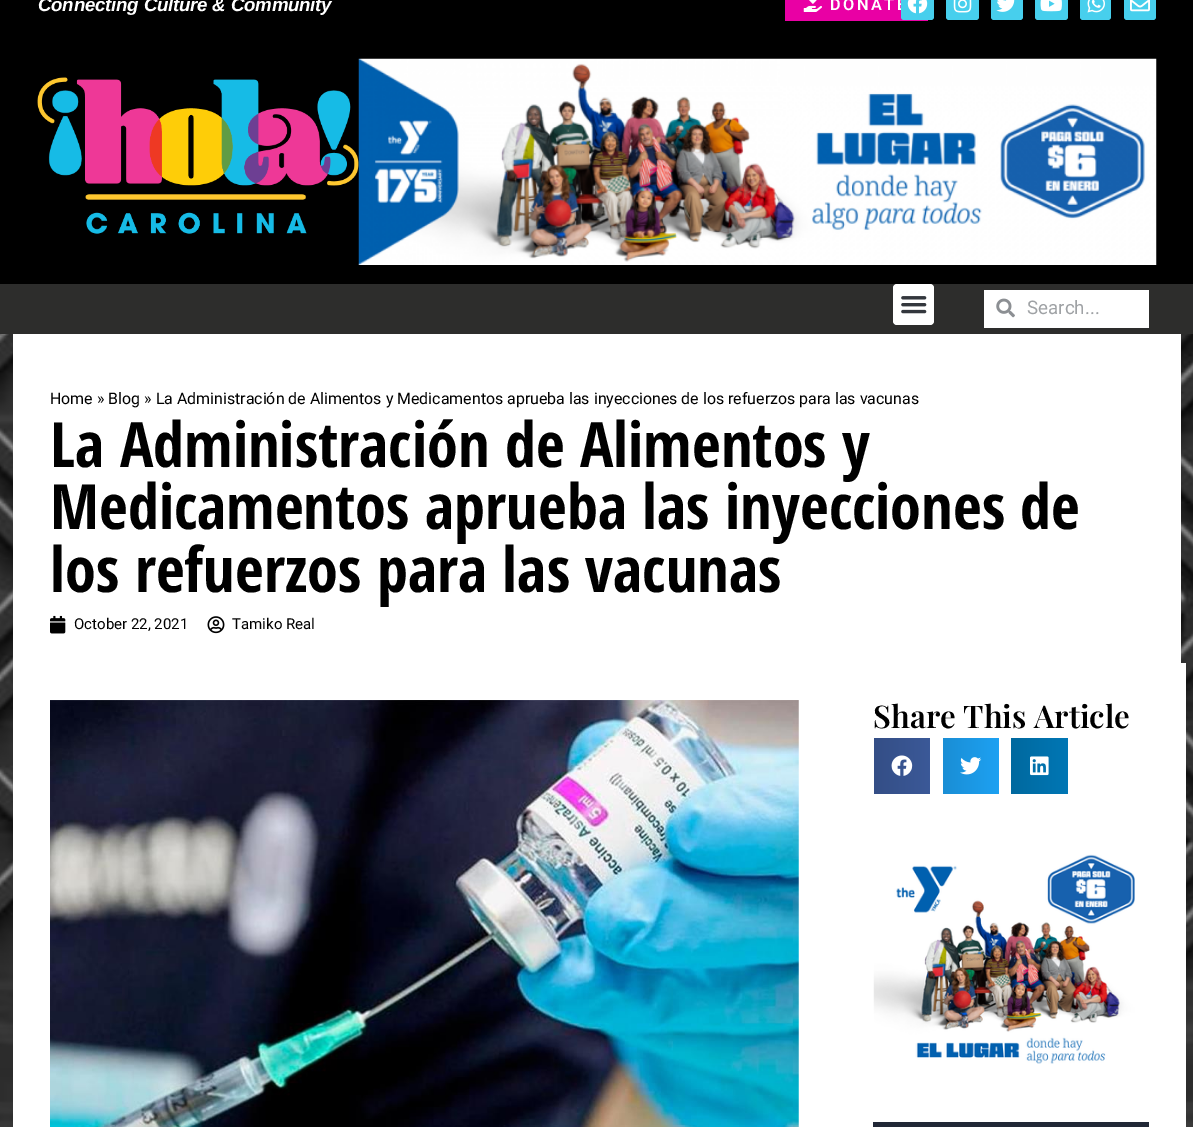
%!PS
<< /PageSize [1193 1127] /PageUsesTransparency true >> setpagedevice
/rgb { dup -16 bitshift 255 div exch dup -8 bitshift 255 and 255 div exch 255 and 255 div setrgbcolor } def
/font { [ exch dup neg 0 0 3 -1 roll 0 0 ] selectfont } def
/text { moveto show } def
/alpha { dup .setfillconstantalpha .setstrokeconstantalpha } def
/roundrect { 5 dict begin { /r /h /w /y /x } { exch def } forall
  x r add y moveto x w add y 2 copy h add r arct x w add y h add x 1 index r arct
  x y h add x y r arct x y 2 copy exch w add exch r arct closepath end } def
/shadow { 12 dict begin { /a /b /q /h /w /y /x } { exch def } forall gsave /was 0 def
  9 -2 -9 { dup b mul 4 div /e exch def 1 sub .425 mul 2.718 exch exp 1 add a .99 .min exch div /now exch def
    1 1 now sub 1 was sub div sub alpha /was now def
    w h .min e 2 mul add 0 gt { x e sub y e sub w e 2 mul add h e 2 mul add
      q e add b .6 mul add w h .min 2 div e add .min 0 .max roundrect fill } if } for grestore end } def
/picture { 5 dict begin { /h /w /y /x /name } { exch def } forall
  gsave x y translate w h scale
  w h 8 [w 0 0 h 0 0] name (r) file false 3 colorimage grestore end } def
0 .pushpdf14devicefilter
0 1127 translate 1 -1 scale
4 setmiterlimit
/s1 { /Roboto-Regular 18.75 font 16#9FA2A5 rgb } def
/s2 { /Roboto-Regular 15.95 font 16#000000 rgb } def
/s3 { /OpenSansCondensed-Bold 62.5 font 16#000000 rgb } def
/s4 { /Roboto-Regular 15 font 16#000000 rgb } def
/s5 { /PlayfairDisplay-SemiBold 31.25 font 16#000000 rgb } def
16#FFFFFF rgb
0 0 1193 1127 rectfill
(pic1.raw) 0 334 1193 793 picture
16#000000 rgb
0 -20 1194 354 0 12.5 0.2 shadow
0 0 1193 284 rectfill
/LiberationSans-BoldItalic 18.75 font
16#FFFFFF rgb
38 11 moveto -0.25 0 (Connecting Culture & Community) ashow
16#E900A4 rgb
785 0 143 21 rectfill
(pic2.raw) 803 0 19 12 picture
/Roboto-SemiBold 16.25 font
16#FFFFFF rgb
830 10 moveto 2.5 0 (DONATE) ashow
16#47CFED rgb
901 -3 33 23 3 roundrect fill
(pic3.raw) 907 0 21 14 picture
946 -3 33 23 3 roundrect fill
(pic4.raw) 953 0 19 13 picture
991 -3 32 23 3 roundrect fill
(pic5.raw) 996 0 19 12 picture
1035 -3 33 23 3 roundrect fill
(pic6.raw) 1040 0 22 12 picture
1080 -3 31 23 3 roundrect fill
(pic7.raw) 1087 0 18 13 picture
1124 -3 32 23 3 roundrect fill
(pic8.raw) 1130 0 20 12 picture
(pic9.raw) 37 77 322 157 picture
(pic10.raw) 358 58 799 207 picture
16#2D2D2C rgb
0 284 1193 50 rectfill
16#FFFFFF rgb
893 284 41 41 4 roundrect fill
(pic11.raw) 901 296 26 18 picture
984 290 165 38 rectfill
(pic12.raw) 996 298 19 20 picture
s1
(Search...) 1027 314 text
16#FFFFFF rgb
13 334 1168 329 rectfill
s2
(Home » Blog » La Administración de Alimentos y Medicamentos aprueba las inyecciones de los refuerzos para las vacunas) 50 404 text
s3
(La Administración de Alimentos y) 50 467 text
(Medicamentos aprueba las inyecciones de) 50 529 text
(los refuerzos para las vacunas) 50 592 text
(pic13.raw) 50 615 16 19 picture
s4
(October 22, 2021) 74 629 text
(pic14.raw) 207 616 18 18 picture
(Tamiko Real) 232 629 text
16#FFFFFF rgb
13 663 1173 464 rectfill
(pic15.raw) 50 700 749 427 picture
s5
(Share This Article) 873 728 text
gsave 874 738 moveto 930 738 lineto 930 794 lineto 874 794 lineto closepath clip newpath
<< /ShadingType 2 /ColorSpace /DeviceRGB /Coords [874 766 930 766] /Extend [true true] /Function << /FunctionType 2 /Domain [0 1] /C0 [0.204 0.306 0.525] /C1 [0.231 0.349 0.596] /N 1 >> >> shfill grestore
(pic16.raw) 891 755 22 21 picture
gsave 943 738 moveto 999 738 lineto 999 794 lineto 943 794 lineto closepath clip newpath
<< /ShadingType 2 /ColorSpace /DeviceRGB /Coords [943 766 999 766] /Extend [true true] /Function << /FunctionType 2 /Domain [0 1] /C0 [0.102 0.557 0.835] /C1 [0.114 0.631 0.949] /N 1 >> >> shfill grestore
(pic17.raw) 960 757 22 18 picture
gsave 1011 738 moveto 1068 738 lineto 1068 794 lineto 1011 794 lineto closepath clip newpath
<< /ShadingType 2 /ColorSpace /DeviceRGB /Coords [1011 766 1068 766] /Extend [true true] /Function << /FunctionType 2 /Domain [0 1] /C0 [0 0.412 0.624] /C1 [0 0.467 0.71] /N 1 >> >> shfill grestore
(pic18.raw) 1030 756 19 20 picture
(pic19.raw) 873 854 262 210 picture
16#212836 rgb
873 1122 276 5 rectfill
.poppdf14devicefilter showpage
